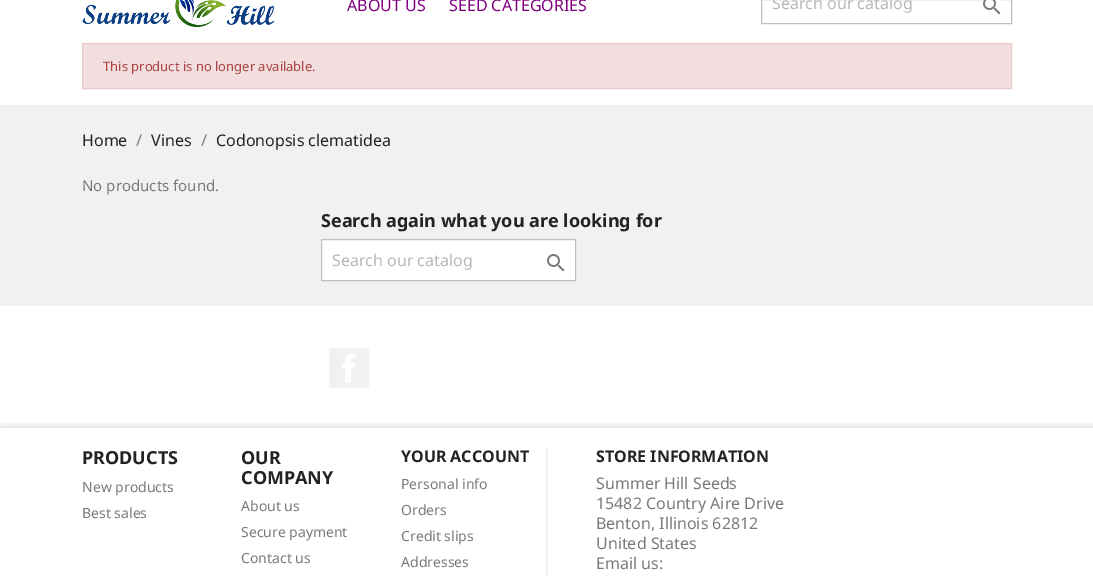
%!PS
<< /PageSize [1093 576] /PageUsesTransparency true >> setpagedevice
/rgb { dup -16 bitshift 255 div exch dup -8 bitshift 255 and 255 div exch 255 and 255 div setrgbcolor } def
/font { [ exch dup neg 0 0 3 -1 roll 0 0 ] selectfont } def
/text { moveto show } def
/alpha { dup .setfillconstantalpha .setstrokeconstantalpha } def
/roundrect { 5 dict begin { /r /h /w /y /x } { exch def } forall
  x r add y moveto x w add y 2 copy h add r arct x w add y h add x 1 index r arct
  x y h add x y r arct x y 2 copy exch w add exch r arct closepath end } def
/shadow { 12 dict begin { /a /b /q /h /w /y /x } { exch def } forall gsave /was 0 def
  9 -2 -9 { dup b mul 4 div /e exch def 1 sub .425 mul 2.718 exch exp 1 add a .99 .min exch div /now exch def
    1 1 now sub 1 was sub div sub alpha /was now def
    w h .min e 2 mul add 0 gt { x e sub y e sub w e 2 mul add h e 2 mul add
      q e add b .6 mul add w h .min 2 div e add .min 0 .max roundrect fill } if } for grestore end } def
/picture { 5 dict begin { /h /w /y /x /name } { exch def } forall
  gsave x y translate w h scale
  w h 8 [w 0 0 h 0 0] name (r) file false 3 colorimage grestore end } def
0 .pushpdf14devicefilter
0 576 translate 1 -1 scale
4 setmiterlimit
/s1 { /NotoSans-Regular 16 font 16#800080 rgb } def
/s2 { /NotoSans-Regular 16 font 16#B7B7B7 rgb } def
/s3 { /NotoSans-Regular 13 font 16#A94442 rgb } def
/s4 { /NotoSans-Regular 16 font 16#232323 rgb } def
/s5 { /NotoSans-Regular 16 font 16#7A7A7A rgb } def
/s6 { /NotoSans-Regular 15 font 16#7A7A7A rgb } def
/s7 { /NotoSans-Bold 18 font 16#232323 rgb } def
/s8 { /NotoSans-Regular 14 font 16#7A7A7A rgb } def
/s9 { /NotoSans-Bold 16 font 16#232323 rgb } def
16#FFFFFF rgb
0 0 1093 576 rectfill
(pic1.raw) 82 0 192 28 picture
s1
(ABOUT US) 347 11 text
(SEED CATEGORIES) 449 11 text
16#BFBFBF rgb
761.5 -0.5 250 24 rectstroke
s2
(Search our catalog) 772 9 text
(pic2.raw) 983 0 18 15 picture
16#F2DEDE rgb
82.5 43.5 moveto 1011.5 43.5 lineto 1011.5 88.5 lineto 82.5 88.5 lineto closepath gsave fill grestore
16#EBCCCC rgb
stroke
s3
(This product is no longer available.) 103 71 text
16#F1F1F1 rgb
0 105 1093 201 rectfill
s4
(Home) 82 146 text
s5
(/) 136 146 text
s4
(Vines) 151 146 text
s5
(/) 201 146 text
s4
(Codonopsis clematidea) 216 146 text
s6
(No products found.) 82 191 text
s7
(Search again what you are looking for) 321 227 text
16#FFFFFF rgb
321.5 239.5 moveto 575.5 239.5 lineto 575.5 280.5 lineto 321.5 280.5 lineto closepath gsave fill grestore
16#BFBFBF rgb
stroke
s2
(Search our catalog) 332 266 text
(pic3.raw) 547 254 18 18 picture
16#F1F1F1 rgb
329 348 40 40 rectfill
(pic4.raw) 342 354 14 29 picture
gsave
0 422 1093 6 rectclip
16#000000 rgb
2 430 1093 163 0 5.5 0.3 shadow
grestore
s7
(PRODUCTS) 82 464 text
s8
(New products) 82 492 text
(Best sales) 82 518 text
s7
(OUR) 241 464 text
(COMPANY) 241 484 text
s8
(About us) 241 511 text
(Secure payment) 241 537 text
(Contact us) 241 563 text
s9
(YOUR ACCOUNT) 401 462 text
s8
(Personal info) 401 489 text
(Orders) 401 515 text
(Credit slips) 401 541 text
(Addresses) 401 567 text
16#F1F1F1 rgb
546 448 2 128 rectfill
s9
(STORE INFORMATION) 596 462 text
s5
(Summer Hill Seeds) 596 489 text
(15482 Country Aire Drive) 596 509 text
(Benton, Illinois 62812) 596 529 text
(United States) 596 549 text
(Email us:) 596 569 text
.poppdf14devicefilter showpage
